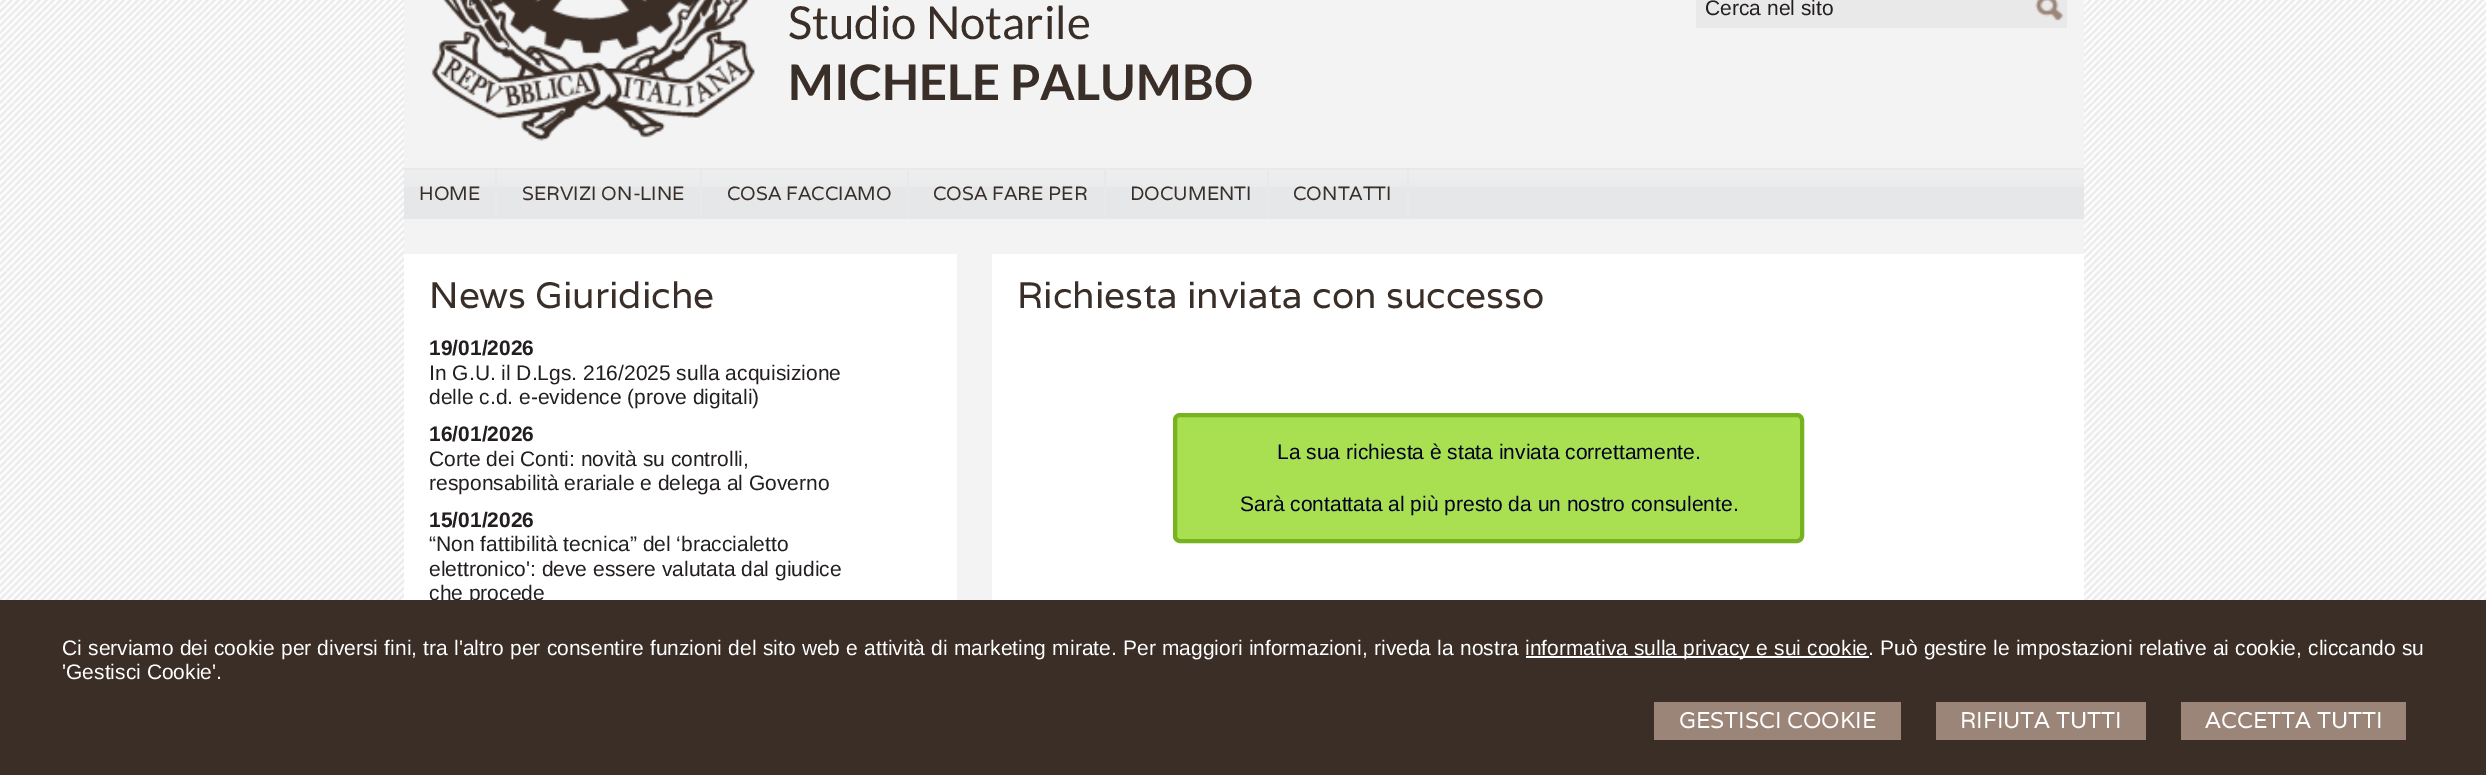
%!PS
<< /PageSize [2486 775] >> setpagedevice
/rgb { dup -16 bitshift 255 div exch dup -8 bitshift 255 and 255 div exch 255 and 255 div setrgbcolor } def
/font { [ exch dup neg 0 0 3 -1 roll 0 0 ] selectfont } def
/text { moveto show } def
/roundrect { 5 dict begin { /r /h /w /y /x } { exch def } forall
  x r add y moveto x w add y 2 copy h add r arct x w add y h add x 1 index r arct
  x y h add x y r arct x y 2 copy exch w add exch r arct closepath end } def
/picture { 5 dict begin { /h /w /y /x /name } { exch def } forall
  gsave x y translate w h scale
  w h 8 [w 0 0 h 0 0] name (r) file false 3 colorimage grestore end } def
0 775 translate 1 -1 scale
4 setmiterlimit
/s1 { /Lato-Regular 45.5 font 16#3A2F28 rgb } def
/s2 { /Lato-Bold 49 font 16#3A2F28 rgb } def
/s3 { /LiberationSans-Regular 21 font 16#231F20 rgb } def
/s4 { /Varela-Regular 19.25 font 16#3A2F28 rgb } def
/s5 { /Varela-Regular 36.75 font 16#3A2F28 rgb } def
/s6 { /LiberationSans-Bold 21 font 16#231F20 rgb } def
/s7 { /LiberationSans-Regular 21 font 16#000021 rgb } def
/s8 { /LiberationSans-Regular 21 font 16#FFFFFF rgb } def
/s9 { /Varela-Regular 22.75 font 16#FFFFFF rgb } def
16#E9E9EA rgb
0 0 2486 775 rectfill
(pic1.raw) 0 0 2486 600 picture
16#F3F3F4 rgb
404 0 1680 168 rectfill
(pic2.raw) 431 0 324 141 picture
s1
(Studio Notarile) 788 39 text
s2
(MICHELE PALUMBO) 788 100 text
16#E9E9EA rgb
1696 0 371 28 rectfill
s3
(Cerca nel sito) 1705 15 text
(pic3.raw) 2035 0 29 22 picture
16#E6E7E8 rgb
404 170 1680 49 rectfill
(pic4.raw) 404 170 1680 17 picture
16#E9E9EA rgb
404 168 1680 2 rectfill
495 170 2 49 rectfill
s4
(HOME) 419 200 text
16#E9E9EA rgb
700 170 2 49 rectfill
s4
(SERVIZI ON-LINE) 522 200 text
16#E9E9EA rgb
907 170 2 49 rectfill
s4
(COSA FACCIAMO) 727 200 text
16#E9E9EA rgb
1104 170 2 49 rectfill
s4
(COSA FARE PER) 933 200 text
16#E9E9EA rgb
1267 170 2 49 rectfill
s4
(DOCUMENTI) 1130 200 text
16#E9E9EA rgb
1407 170 2 49 rectfill
s4
(CONTATTI) 1293 200 text
16#F3F3F4 rgb
404 219 1680 381 rectfill
16#FFFFFF rgb
404 254 553 346 rectfill
s5
(News Giuridiche) 429 308 text
s6
(19/01/2026) 429 355 text
s3
(In G.U. il D.Lgs. 216/2025 sulla acquisizione) 429 380 text
(delle c.d. e-evidence \(prove digitali\)) 429 404 text
s6
(16/01/2026) 429 441 text
s3
(Corte dei Conti: novità su controlli,) 429 466 text
(responsabilità erariale e delega al Governo) 429 490 text
s6
(15/01/2026) 429 527 text
s3
(“Non fattibilità tecnica” del ‘braccialetto) 429 551 text
(elettronico': deve essere valutata dal giudice) 429 576 text
(che procede) 429 600 text
16#FFFFFF rgb
992 254 1092 346 rectfill
s5
(Richiesta inviata con successo) 1017 308 text
16#A8E052 rgb
1175 415 627 126 5 roundrect gsave fill grestore
16#76B31F rgb
4 setlinewidth
stroke
s7
(La sua richiesta è stata inviata correttamente.) 1277 459 text
(Sarà contattata al più presto da un nostro consulente.) 1240 511 text
16#3A2E27 rgb
0 600 2486 175 rectfill
16#FFFFFF rgb
62 655 moveto 0.45 0 32 (Ci serviamo dei cookie per diversi fini, tra l'altro per consentire funzioni del sito web e attività di marketing mirate. Per maggiori informazioni, riveda la nostra) widthshow
1526 656 343 2 rectfill
1525 655 moveto 0.45 0 32 (informativa sulla privacy e sui cookie. Può gestire le impostazioni relative ai cookie, cliccando su) widthshow
('Gestisci Cookie'.) 62 679 text
16#9B8579 rgb
1654 702 247 38 rectfill
s9
(GESTISCI COOKIE) 1679 728 text
16#9B8579 rgb
1936 702 210 38 rectfill
s9
(RIFIUTA TUTTI) 1960 728 text
16#9B8579 rgb
2181 702 225 38 rectfill
s9
(ACCETTA TUTTI) 2205 728 text
showpage
